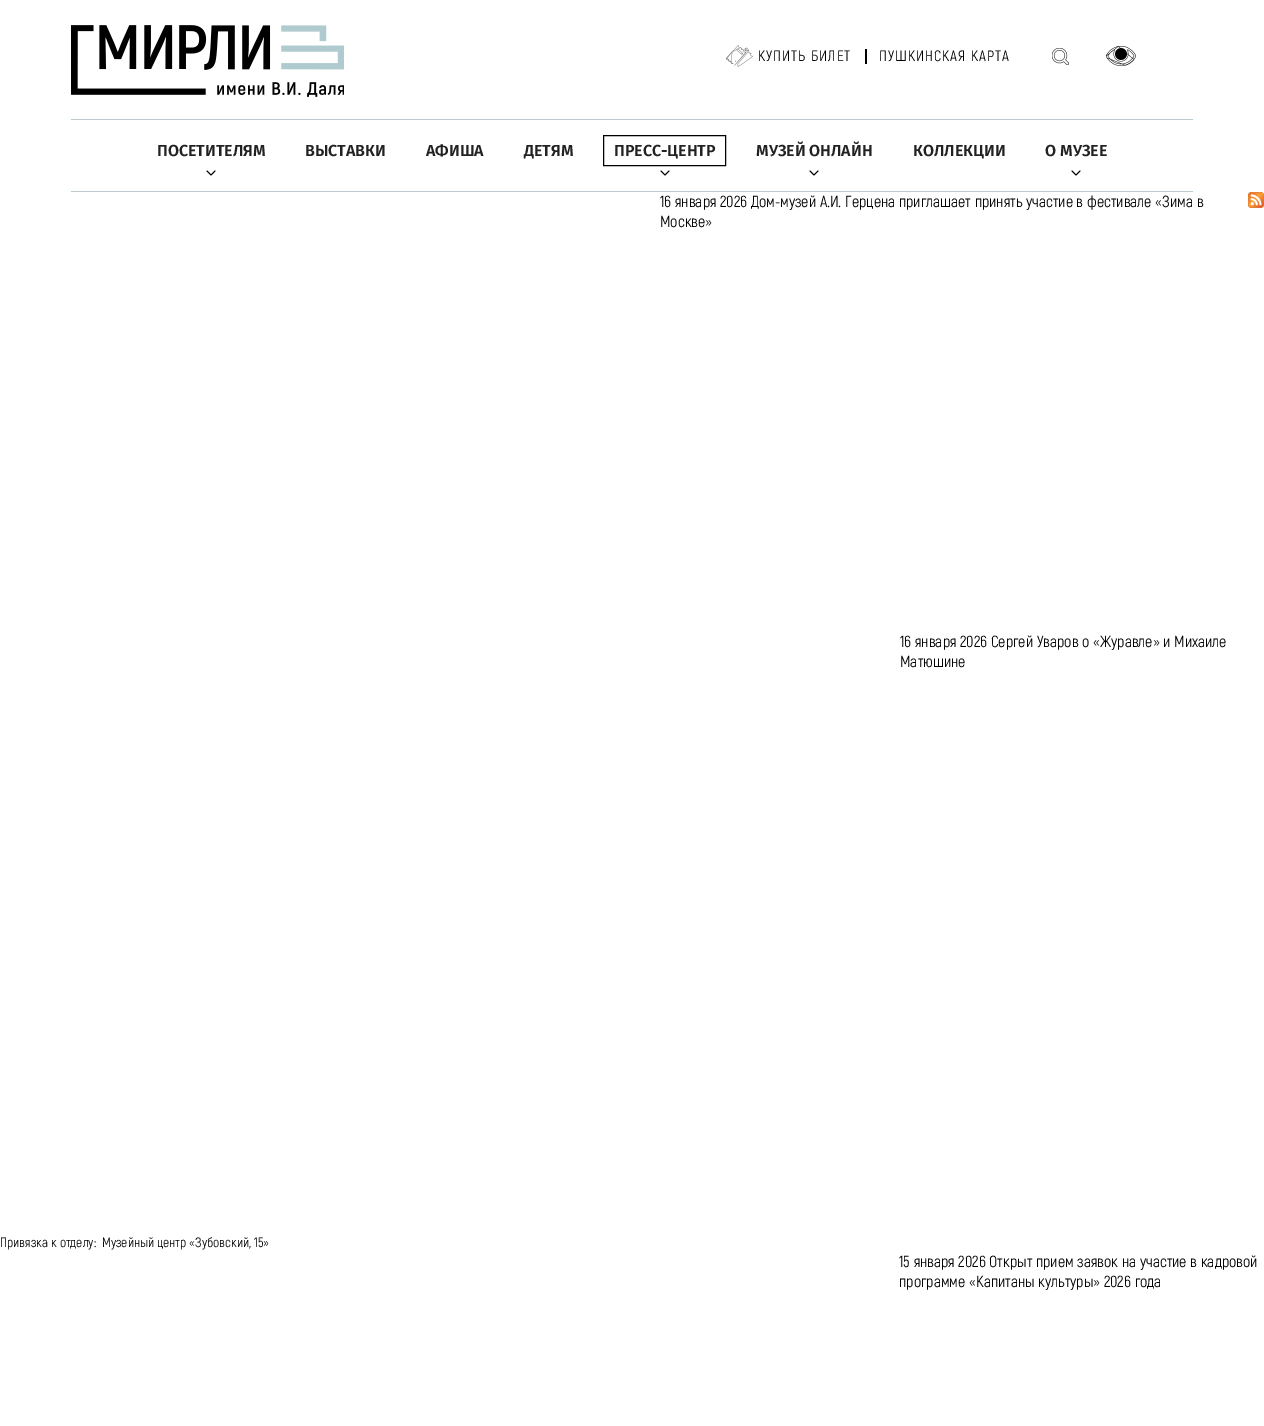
%!PS
<< /PageSize [1264 1426] >> setpagedevice
/rgb { dup -16 bitshift 255 div exch dup -8 bitshift 255 and 255 div exch 255 and 255 div setrgbcolor } def
/font { [ exch dup neg 0 0 3 -1 roll 0 0 ] selectfont } def
/text { moveto show } def
/picture { 5 dict begin { /h /w /y /x /name } { exch def } forall
  gsave x y translate w h scale
  w h 8 [w 0 0 h 0 0] name (r) file false 3 colorimage grestore end } def
0 1426 translate 1 -1 scale
4 setmiterlimit
/s1 { /FiraSans-SemiBold 16 font 16#222222 rgb } def
/s2 { /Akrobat-Regular 16 font 16#000000 rgb } def
/s3 { /Akrobat-Regular 13.5 font 16#000000 rgb } def
16#FFFFFF rgb
0 0 1264 1426 rectfill
(pic1.raw) 71 25 273 72 picture
(pic2.raw) 726 45 27 22 picture
/Akrobat-Regular 15 font
16#000000 rgb
758 61 moveto 1 0 (КУПИТЬ БИЛЕТ) ashow
865 49 2 15 rectfill
879 61 moveto 1 0 (ПУШКИНСКАЯ КАРТА) ashow
(pic3.raw) 1052 48 17 17 picture
(pic4.raw) 1106 46 30 20 picture
16#BDCACF rgb
71 119 1122 1 rectfill
71 191 1122 1 rectfill
s1
(ПОСЕТИТЕЛЯМ) 157 156 text
16#000000 rgb
1 setlinecap
1 setlinejoin
207 171 moveto 211 175 lineto 215 171 lineto stroke
s1
(ВЫСТАВКИ) 305 156 text
(АФИША) 426 156 text
(ДЕТЯМ) 524 156 text
16#000000 rgb
0 setlinecap
0 setlinejoin
603.5 135.5 122 30 rectstroke
s1
(ПРЕСС-ЦЕНТР) 614 156 text
16#000000 rgb
1 setlinecap
1 setlinejoin
661 171 moveto 665 175 lineto 669 171 lineto stroke
s1
(МУЗЕЙ ОНЛАЙН) 756 156 text
16#000000 rgb
810 171 moveto 814 175 lineto 818 171 lineto stroke
s1
(КОЛЛЕКЦИИ) 913 156 text
(О МУЗЕЕ) 1045 156 text
16#000000 rgb
1072 171 moveto 1076 175 lineto 1080 171 lineto stroke
(pic5.raw) 1248 192 16 16 picture
s2
(16 января 2026 Дом-музей А.И. Герцена приглашает принять участие в фестивале «Зима в) 660 207 text
(Москве») 660 227 text
(16 января 2026 Сергей Уваров о «Журавле» и Михаиле) 900 647 text
(Матюшине) 900 667 text
s3
(Привязка к отделу:) 0 1247 text
(Музейный центр «Зубовский, 15») 102 1247 text
s2
(15 января 2026 Открыт прием заявок на участие в кадровой) 899 1267 text
(программе «Капитаны культуры» 2026 года) 899 1287 text
showpage
